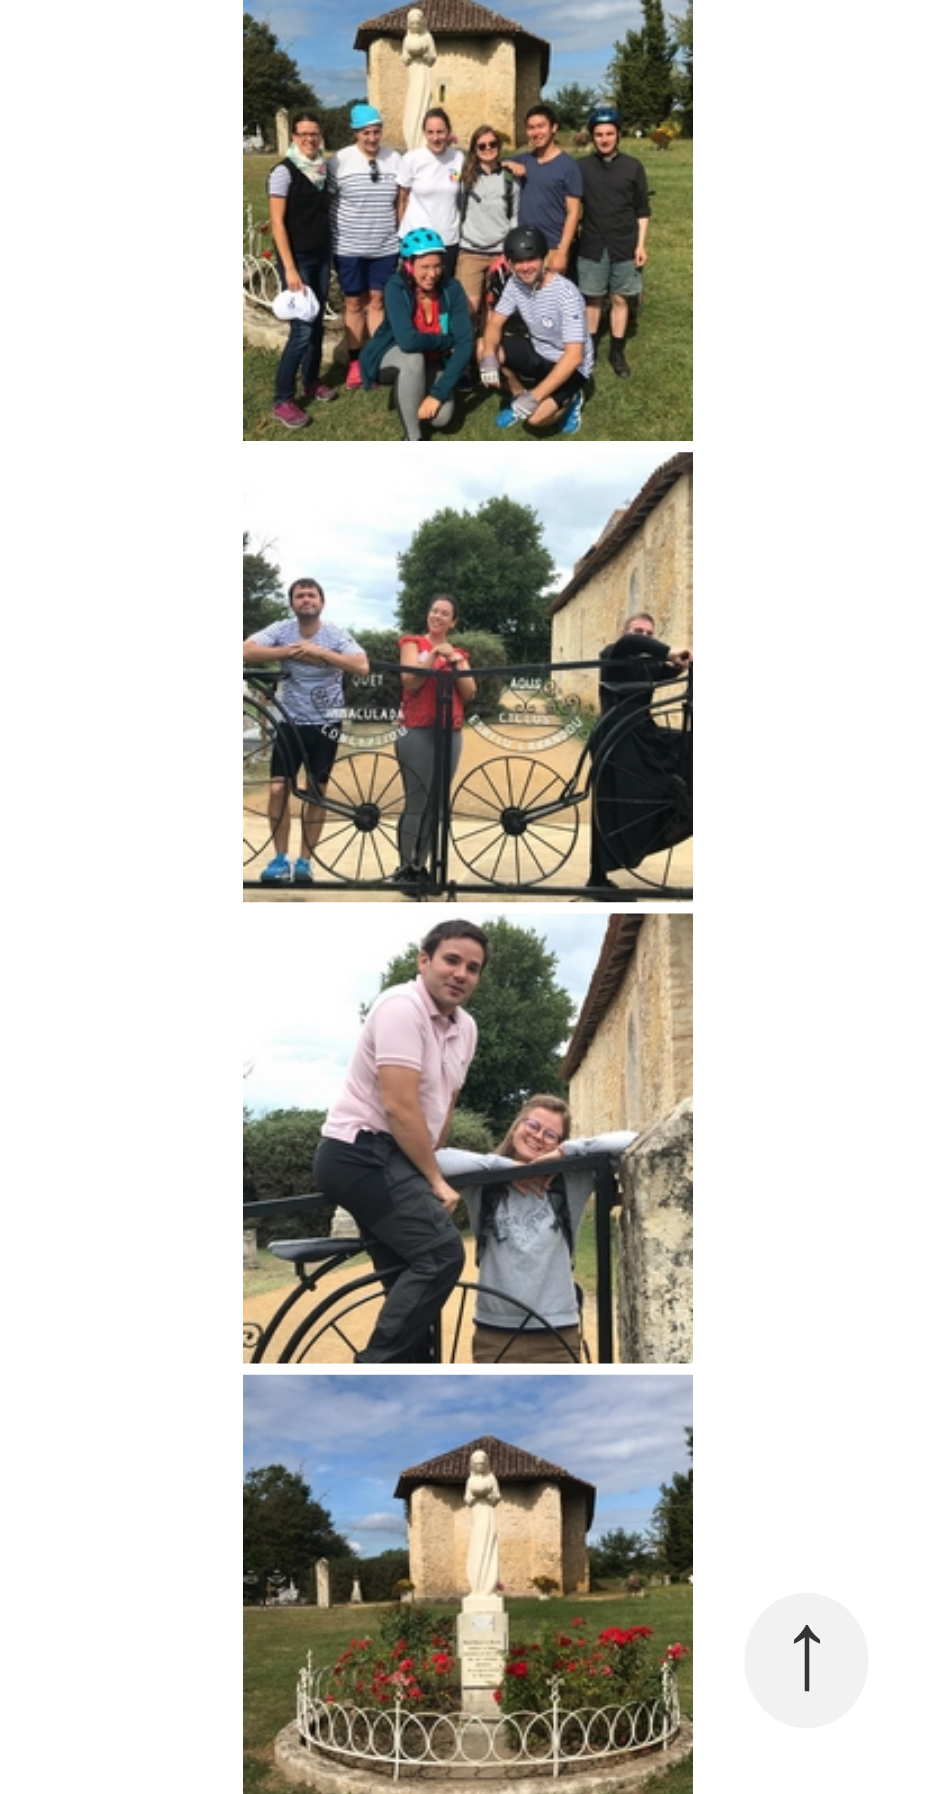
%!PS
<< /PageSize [936 1794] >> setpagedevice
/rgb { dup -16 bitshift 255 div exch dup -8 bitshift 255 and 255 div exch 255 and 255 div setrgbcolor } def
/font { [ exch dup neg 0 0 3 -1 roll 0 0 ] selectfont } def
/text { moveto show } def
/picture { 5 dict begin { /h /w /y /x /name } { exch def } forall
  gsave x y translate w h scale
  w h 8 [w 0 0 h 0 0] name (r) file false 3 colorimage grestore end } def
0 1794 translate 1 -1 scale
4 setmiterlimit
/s1 { /LiberationSans-Regular 112 font 16#333333 rgb } def
16#FFFFFF rgb
0 0 936 1794 rectfill
(pic1.raw) 243 0 450 441 picture
(pic2.raw) 243 452 450 451 picture
(pic3.raw) 243 913 450 451 picture
(pic4.raw) 243 1374 450 420 picture
16#F2F2F2 rgb
806.5 1593 moveto 840.5 1593 868.5 1623 868.5 1660.5 curveto 868.5 1698 840.5 1728 806.5 1728 curveto 772.5 1728 744.5 1698 744.5 1660.5 curveto 744.5 1623 772.5 1593 806.5 1593 curveto closepath fill
s1
(↑) 779 1688 text
showpage
